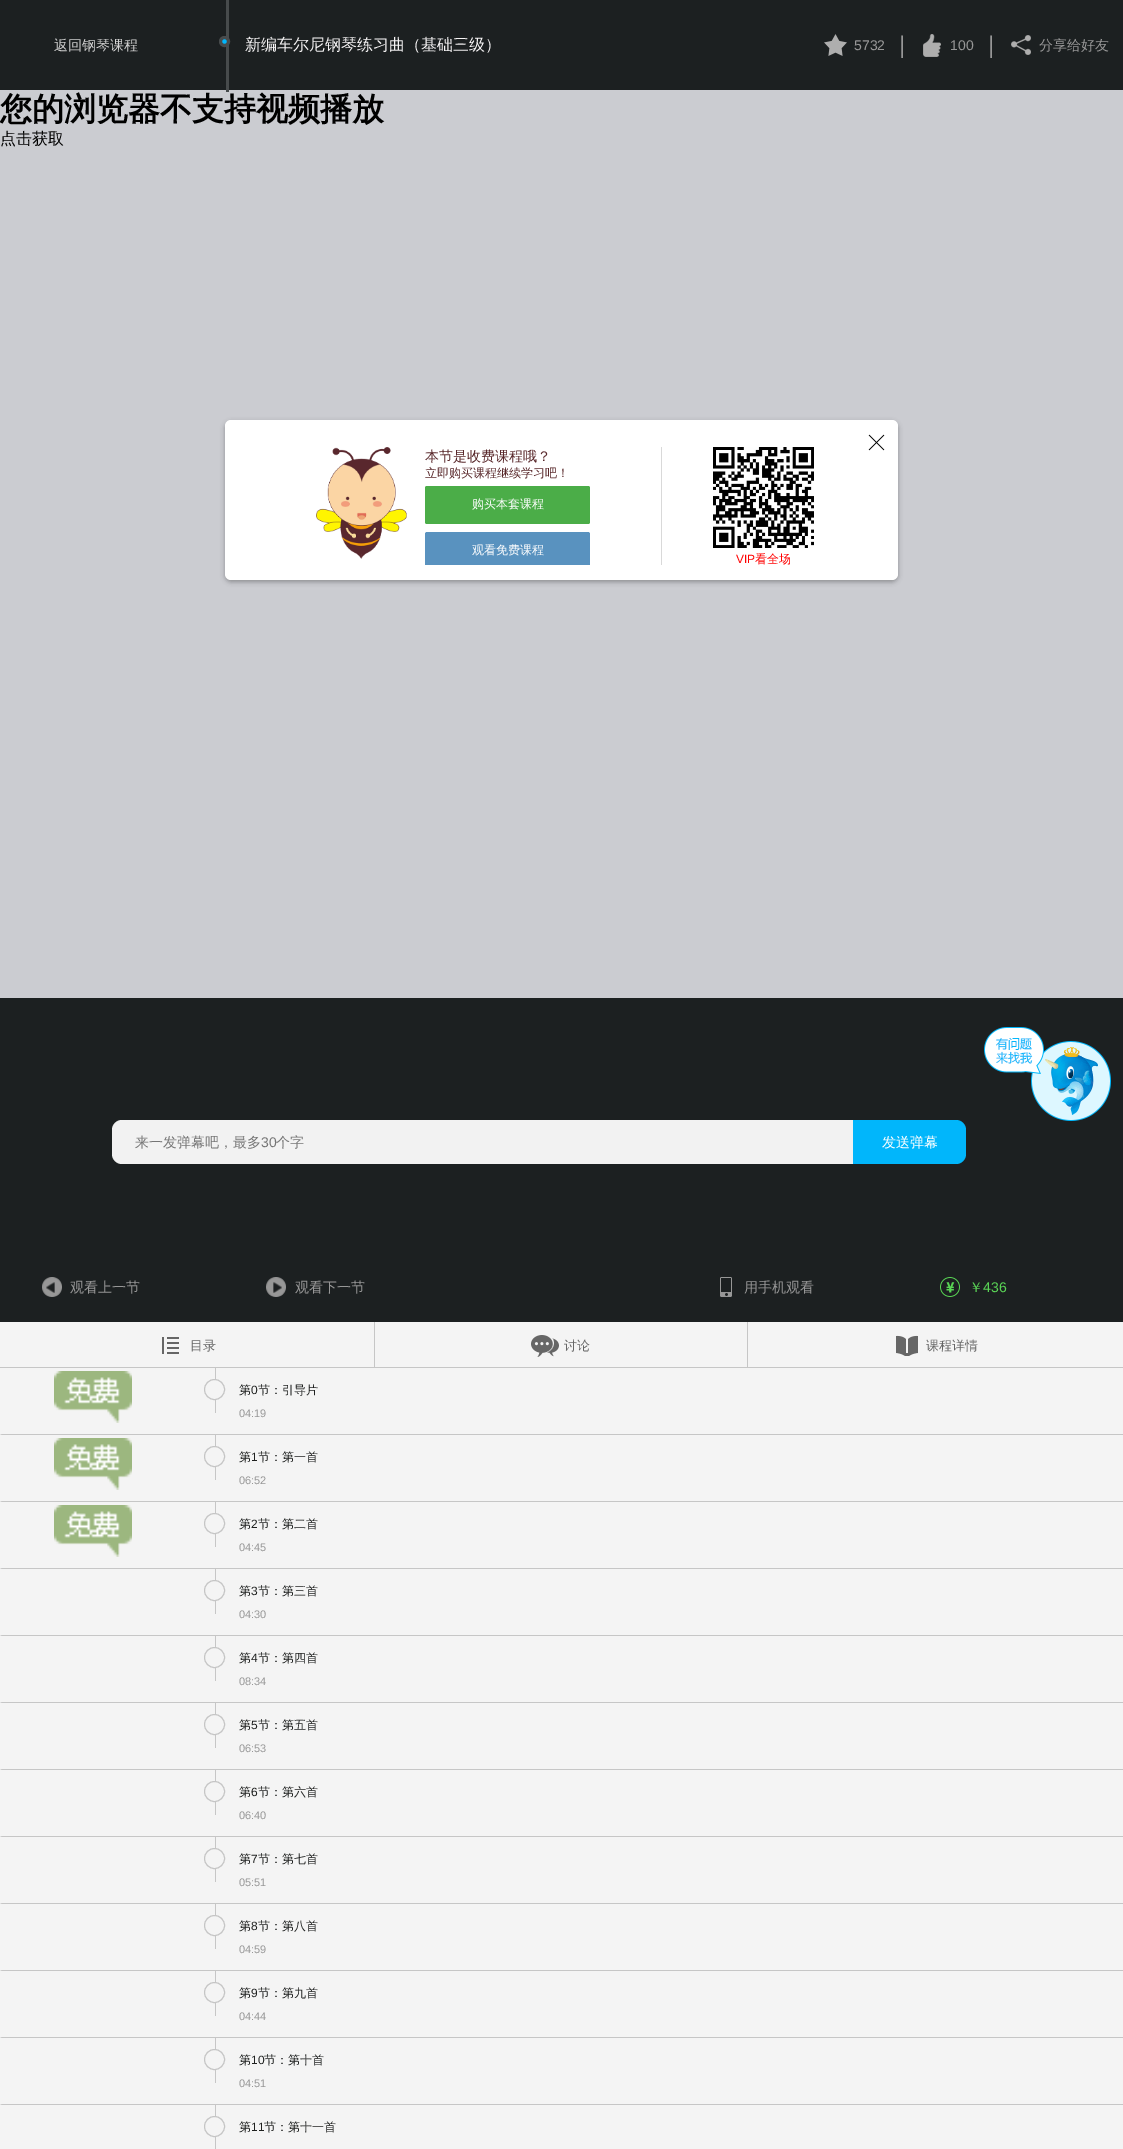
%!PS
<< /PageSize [1123 2149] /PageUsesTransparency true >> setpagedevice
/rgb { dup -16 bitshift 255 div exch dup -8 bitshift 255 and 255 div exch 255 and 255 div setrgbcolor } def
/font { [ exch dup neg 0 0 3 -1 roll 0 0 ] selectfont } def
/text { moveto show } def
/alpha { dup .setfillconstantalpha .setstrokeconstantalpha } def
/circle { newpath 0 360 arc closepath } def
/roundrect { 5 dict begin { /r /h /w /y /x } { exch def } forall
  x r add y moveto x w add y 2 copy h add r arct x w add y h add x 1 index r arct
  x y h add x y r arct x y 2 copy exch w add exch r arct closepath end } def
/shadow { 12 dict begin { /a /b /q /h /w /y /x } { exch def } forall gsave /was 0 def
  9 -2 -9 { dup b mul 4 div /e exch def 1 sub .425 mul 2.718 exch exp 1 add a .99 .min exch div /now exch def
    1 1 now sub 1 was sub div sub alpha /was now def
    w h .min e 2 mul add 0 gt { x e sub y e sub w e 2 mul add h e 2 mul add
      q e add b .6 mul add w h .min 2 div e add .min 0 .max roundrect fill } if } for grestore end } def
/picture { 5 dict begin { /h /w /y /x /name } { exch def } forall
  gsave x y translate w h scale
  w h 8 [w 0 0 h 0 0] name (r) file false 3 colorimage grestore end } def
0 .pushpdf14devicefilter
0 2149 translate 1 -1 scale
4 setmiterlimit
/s1 { /WenQuanYiZenHei-Medium 14 font 16#D2D2D2 rgb } def
/s2 { /WenQuanYiZenHei-Medium 16 font 16#F6F4F5 rgb } def
/s3 { /LiberationSans-Regular 14 font 16#979797 rgb } def
/s4 { /LiberationSans-Regular 24 font 16#979797 rgb } def
/s5 { /WenQuanYiZenHei-Medium 14 font 16#979797 rgb } def
/s6 { /WenQuanYiZenHei-Bold 32 font 16#000000 rgb } def
/s7 { /WenQuanYiZenHei-Medium 16 font 16#000000 rgb } def
/s8 { /WenQuanYiZenHei-Medium 14 font 16#58272A rgb } def
/s9 { /WenQuanYiZenHei-Medium 12 font 16#58272A rgb } def
/s10 { /WenQuanYiZenHei-Medium 12 font 16#FFFFFF rgb } def
/s11 { /LiberationSans-Regular 12 font 16#FF0000 rgb } def
/s12 { /WenQuanYiZenHei-Medium 12 font 16#FF0000 rgb } def
/s13 { /WenQuanYiZenHei-Medium 14 font 16#757575 rgb } def
/s14 { /LiberationSans-Regular 14 font 16#757575 rgb } def
/s15 { /WenQuanYiZenHei-Medium 14 font 16#FFFFFF rgb } def
/s16 { /WenQuanYiZenHei-Medium 14 font 16#59D455 rgb } def
/s17 { /LiberationSans-Regular 14 font 16#59D455 rgb } def
/s18 { /WenQuanYiZenHei-Medium 13 font 16#666666 rgb } def
/s19 { /WenQuanYiZenHei-Medium 12 font 16#1F2120 rgb } def
/s20 { /LiberationSans-Regular 12 font 16#1F2120 rgb } def
/s21 { /LiberationSans-Regular 11 font 16#979797 rgb } def
16#CBCCD1 rgb
0 0 1123 2149 rectfill
16#1C2021 rgb
0 0 1123 90 rectfill
s1
(返回钢琴课程) 54 50 text
16#474B4C rgb
226 0 3 92 rectfill
16#00B7FD rgb
224.5 41.5 4 circle gsave fill grestore
16#474B4C rgb
3 setlinewidth
stroke
s2
(新编车尔尼钢琴练习曲（基础三级）) 245 50 text
(pic1.raw) 824 34 23 22 picture
s3
(5732) 854 50 text
s4
(|) 899 53 text
(pic2.raw) 923 34 18 23 picture
s3
(100) 950 50 text
s4
(|) 988 53 text
(pic3.raw) 1011 35 20 20 picture
s5
(分享给好友) 1039 50 text
s6
(您的浏览器不支持视频播放) 0 120 text
s7
(点击获取) 0 144 text
225 422 673 160 6 2.5 0.3 shadow
16#FFFFFF rgb
225 420 673 160 6 roundrect fill
(pic4.raw) 868 434 17 17 picture
(pic5.raw) 316 447 91 112 picture
s8
(本节是收费课程哦？) 425 461 text
s9
(立即购买课程继续学习吧！) 425 477 text
16#4BAD48 rgb
425 486 165 38 2 roundrect fill
s10
(购买本套课程) 472 508 text
16#5992BF rgb
427 532 moveto 588 532 lineto 589 532 590 533 590 534 curveto 590 565 lineto 425 565 lineto 425 534 lineto 425 533 426 532 427 532 curveto closepath fill
s10
(观看免费课程) 472 554 text
16#D9D9D9 rgb
661 447 1 118 rectfill
(pic6.raw) 713 447 101 101 picture
s11
(VIP) 736 563 text
s12
(看全场) 755 563 text
16#1C2021 rgb
0 998 1123 324 rectfill
16#F2F2F2 rgb
122 1120 moveto 853 1120 lineto 853 1164 lineto 122 1164 lineto 116.5 1164 112 1159.5 112 1154 curveto 112 1130 lineto 112 1124.5 116.5 1120 122 1120 curveto closepath fill
s13
(来一发弹幕吧，最多) 135 1147 text
s14
(30) 261 1147 text
s13
(个字) 276 1147 text
16#01B6FB rgb
853 1120 moveto 956 1120 lineto 961.5 1120 966 1124.5 966 1130 curveto 966 1154 lineto 966 1159.5 961.5 1164 956 1164 curveto 853 1164 lineto closepath fill
s15
(发送弹幕) 882 1147 text
(pic7.raw) 42 1277 20 20 picture
s5
(观看上一节) 70 1292 text
(pic8.raw) 266 1277 20 20 picture
(观看下一节) 295 1292 text
(pic9.raw) 720 1277 12 20 picture
(用手机观看) 744 1292 text
(pic10.raw) 940 1277 20 20 picture
s16
(￥) 969 1292 text
s17
(436) 983 1292 text
16#F4F4F4 rgb
0 1322 1123 45 rectfill
16#C6C6C6 rgb
0 1367 1123 1 rectfill
(pic11.raw) 162 1337 17 17 picture
s18
(目录) 190 1350 text
16#C6C6C6 rgb
747 1322 1 45 rectfill
374 1322 1 45 rectfill
(pic12.raw) 531 1335 28 22 picture
s18
(讨论) 564 1350 text
(pic13.raw) 896 1335 22 21 picture
(课程详情) 926 1350 text
16#F4F4F4 rgb
0 1368 1123 781 rectfill
(pic14.raw) 54 1371 78 52 picture
16#C6C6C6 rgb
1123 1435 moveto 0 1435 lineto 2 1434 lineto 1123 1434 lineto closepath fill
215 1368 1 45 rectfill
16#F4F4F4 rgb
214.5 1389.5 10 circle gsave fill grestore
16#C5C5C5 rgb
1 setlinewidth
stroke
s19
(第) 239 1394 text
s20
(0) 251 1394 text
s19
(节：引导片) 258 1394 text
s21
(04:19) 239 1417 text
(pic14.raw) 54 1438 78 52 picture
16#C6C6C6 rgb
1123 1502 moveto 0 1502 lineto 2 1501 lineto 1123 1501 lineto closepath fill
215 1435 1 45 rectfill
16#F4F4F4 rgb
214.5 1456.5 10 circle gsave fill grestore
16#C5C5C5 rgb
stroke
s19
(第) 239 1461 text
s20
(1) 251 1461 text
s19
(节：第一首) 258 1461 text
s21
(06:52) 239 1484 text
(pic15.raw) 54 1505 78 52 picture
16#C6C6C6 rgb
1123 1569 moveto 0 1569 lineto 2 1568 lineto 1123 1568 lineto closepath fill
215 1502 1 45 rectfill
16#F4F4F4 rgb
214.5 1523.5 10 circle gsave fill grestore
16#C5C5C5 rgb
stroke
s19
(第) 239 1528 text
s20
(2) 251 1528 text
s19
(节：第二首) 258 1528 text
s21
(04:45) 239 1551 text
16#C6C6C6 rgb
1123 1636 moveto 0 1636 lineto 2 1635 lineto 1123 1635 lineto closepath fill
215 1569 1 45 rectfill
16#F4F4F4 rgb
214.5 1590.5 10 circle gsave fill grestore
16#C5C5C5 rgb
stroke
s19
(第) 239 1595 text
s20
(3) 251 1595 text
s19
(节：第三首) 258 1595 text
s21
(04:30) 239 1618 text
16#C6C6C6 rgb
1123 1703 moveto 0 1703 lineto 2 1702 lineto 1123 1702 lineto closepath fill
215 1636 1 45 rectfill
16#F4F4F4 rgb
214.5 1657.5 10 circle gsave fill grestore
16#C5C5C5 rgb
stroke
s19
(第) 239 1662 text
s20
(4) 251 1662 text
s19
(节：第四首) 258 1662 text
s21
(08:34) 239 1685 text
16#C6C6C6 rgb
1123 1770 moveto 0 1770 lineto 2 1769 lineto 1123 1769 lineto closepath fill
215 1703 1 45 rectfill
16#F4F4F4 rgb
214.5 1724.5 10 circle gsave fill grestore
16#C5C5C5 rgb
stroke
s19
(第) 239 1729 text
s20
(5) 251 1729 text
s19
(节：第五首) 258 1729 text
s21
(06:53) 239 1752 text
16#C6C6C6 rgb
1123 1837 moveto 0 1837 lineto 2 1836 lineto 1123 1836 lineto closepath fill
215 1770 1 45 rectfill
16#F4F4F4 rgb
214.5 1791.5 10 circle gsave fill grestore
16#C5C5C5 rgb
stroke
s19
(第) 239 1796 text
s20
(6) 251 1796 text
s19
(节：第六首) 258 1796 text
s21
(06:40) 239 1819 text
16#C6C6C6 rgb
1123 1904 moveto 0 1904 lineto 2 1903 lineto 1123 1903 lineto closepath fill
215 1837 1 45 rectfill
16#F4F4F4 rgb
214.5 1858.5 10 circle gsave fill grestore
16#C5C5C5 rgb
stroke
s19
(第) 239 1863 text
s20
(7) 251 1863 text
s19
(节：第七首) 258 1863 text
s21
(05:51) 239 1886 text
16#C6C6C6 rgb
1123 1971 moveto 0 1971 lineto 2 1970 lineto 1123 1970 lineto closepath fill
215 1904 1 45 rectfill
16#F4F4F4 rgb
214.5 1925.5 10 circle gsave fill grestore
16#C5C5C5 rgb
stroke
s19
(第) 239 1930 text
s20
(8) 251 1930 text
s19
(节：第八首) 258 1930 text
s21
(04:59) 239 1953 text
16#C6C6C6 rgb
1123 2038 moveto 0 2038 lineto 2 2037 lineto 1123 2037 lineto closepath fill
215 1971 1 45 rectfill
16#F4F4F4 rgb
214.5 1992.5 10 circle gsave fill grestore
16#C5C5C5 rgb
stroke
s19
(第) 239 1997 text
s20
(9) 251 1997 text
s19
(节：第九首) 258 1997 text
s21
(04:44) 239 2020 text
16#C6C6C6 rgb
1123 2105 moveto 0 2105 lineto 2 2104 lineto 1123 2104 lineto closepath fill
215 2038 1 45 rectfill
16#F4F4F4 rgb
214.5 2059.5 10 circle gsave fill grestore
16#C5C5C5 rgb
stroke
s19
(第) 239 2064 text
s20
(10) 251 2064 text
s19
(节：第十首) 264 2064 text
s21
(04:51) 239 2087 text
16#C6C6C6 rgb
215 2105 1 44 rectfill
16#F4F4F4 rgb
214.5 2126.5 10 circle gsave fill grestore
16#C5C5C5 rgb
stroke
s19
(第) 239 2131 text
s20
(11) 251 2131 text
s19
(节：第十一首) 264 2131 text
(pic16.raw) 984 1027 127 94 picture
.poppdf14devicefilter showpage
